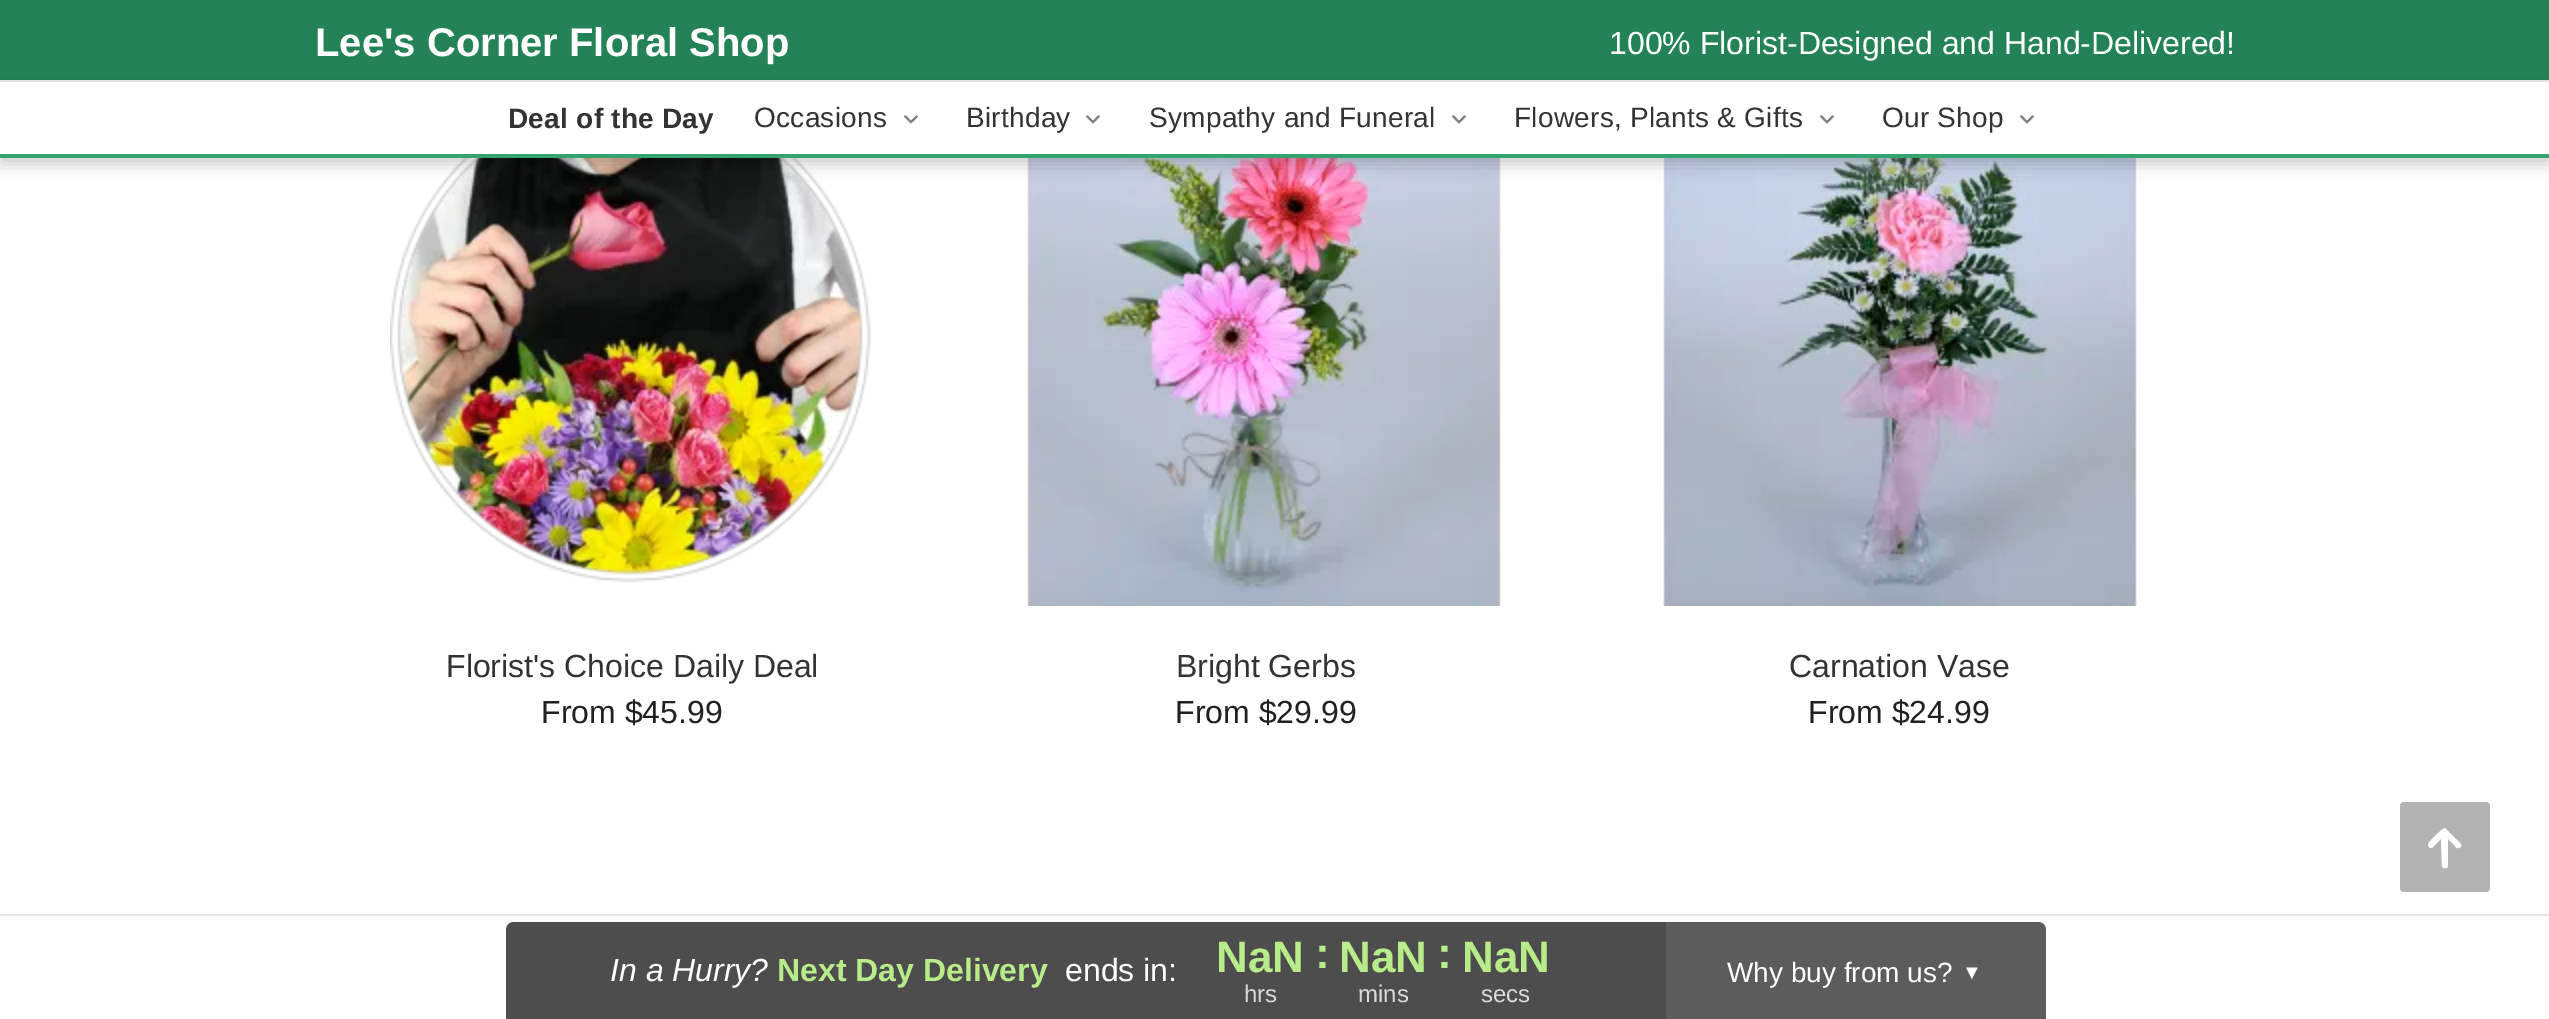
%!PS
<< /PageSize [2549 1019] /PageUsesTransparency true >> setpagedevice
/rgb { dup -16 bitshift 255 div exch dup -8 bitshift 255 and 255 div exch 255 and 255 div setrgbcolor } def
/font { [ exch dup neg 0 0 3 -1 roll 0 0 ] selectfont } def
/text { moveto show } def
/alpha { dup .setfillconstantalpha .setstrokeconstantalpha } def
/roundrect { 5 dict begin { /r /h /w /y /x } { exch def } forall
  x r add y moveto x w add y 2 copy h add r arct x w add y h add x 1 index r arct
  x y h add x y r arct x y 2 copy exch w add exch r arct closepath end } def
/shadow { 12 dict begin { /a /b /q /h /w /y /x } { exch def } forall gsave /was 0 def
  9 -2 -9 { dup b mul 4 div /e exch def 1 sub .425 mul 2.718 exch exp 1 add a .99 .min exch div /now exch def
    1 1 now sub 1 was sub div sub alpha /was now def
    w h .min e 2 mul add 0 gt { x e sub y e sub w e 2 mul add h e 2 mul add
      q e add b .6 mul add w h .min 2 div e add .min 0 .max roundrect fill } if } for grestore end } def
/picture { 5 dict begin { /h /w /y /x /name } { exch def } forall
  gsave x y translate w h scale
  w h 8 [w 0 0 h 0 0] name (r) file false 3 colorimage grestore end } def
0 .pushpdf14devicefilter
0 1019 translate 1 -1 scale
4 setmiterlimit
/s1 { /LiberationSans-Bold 40 font 16#FFFFFF rgb } def
/s2 { /LiberationSans-Regular 32 font 16#FFFFFF rgb } def
/s3 { /LiberationSans-Regular 32 font 16#333333 rgb } def
/s4 { /LiberationSans-Regular 32 font 16#212121 rgb } def
/s5 { /LiberationSans-Italic 32 font 16#FFFFFF rgb } def
/s6 { /LiberationSans-Bold 32 font 16#B8EB89 rgb } def
/s7 { /LiberationSans-Bold 44 font 16#B8EB89 rgb } def
/s8 { /LiberationSans-Regular 24 font 16#DBDBDB rgb } def
/s9 { /LiberationSans-Regular 28 font 16#FFFFFF rgb } def
/s10 { /LiberationSans-Regular 20 font 16#FFFFFF rgb } def
16#FFFFFF rgb
0 0 2549 1019 rectfill
16#238357 rgb
0 0 2549 80 rectfill
s1
(Lee's Corner Floral Shop) 315 56 text
s2
(100% Florist-Designed and Hand-Delivered!) 1609 54 text
16#EAEAEA rgb
0 80 2549 2 rectfill
(pic2.raw) 390 158 481 425 picture
(pic3.raw) 1027 158 474 448 picture
(pic4.raw) 1663 158 474 448 picture
16#000000 rgb
0 88 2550 76 0 8 0.2 shadow
16#FFFFFF rgb
0 82 2549 72 rectfill
16#33A370 rgb
0 154 2549 4 rectfill
/LiberationSans-Bold 28 font
16#333333 rgb
508 128 moveto 0.25 0 (Deal of the Day) ashow
/LiberationSans-Regular 28 font
754 127 moveto 0.25 0 (Occasions) ashow
(pic1.raw) 904 115 14 9 picture
966 127 moveto 0.25 0 (Birthday) ashow
(pic1.raw) 1086 115 14 9 picture
1149 127 moveto 0.25 0 (Sympathy and Funeral) ashow
(pic1.raw) 1452 115 14 9 picture
1514 127 moveto 0.25 0 (Flowers, Plants & Gifts) ashow
(pic1.raw) 1820 115 14 9 picture
1882 127 moveto 0.25 0 (Our Shop) ashow
(pic1.raw) 2020 115 14 9 picture
s3
(Florist's Choice Daily Deal) 446 677 text
s4
(From $45.99) 541 723 text
s3
(Bright Gerbs) 1176 677 text
s4
(From $29.99) 1175 723 text
s3
(Carnation Vase) 1789 677 text
s4
(From $24.99) 1808 723 text
16#B3B3B3 rgb
2400 802 90 90 4 roundrect fill
16#FFFFFF rgb
2448 866 moveto 2448 839 lineto 2455 846 lineto 2456 847 2457 849 2459 848 curveto 2464 846 2460 843 2458 841 curveto 2445 828 lineto 2443 828 2435 836 2433 838 curveto 2431 841 2425 844 2430 848 curveto 2432 848 lineto 2441 839 lineto 2442 866 lineto 2442 869 2448 869 2448 866 curveto closepath fill
16#E6E6E6 rgb
0 914 2549 2 rectfill
16#4D4D4D rgb
514 922 moveto 1666 922 lineto 1666 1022 lineto 506 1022 lineto 506 930 lineto 506 925.5 509.5 922 514 922 curveto closepath fill
s5
(In a Hurry?) 610 981 text
s6
(Next Day Delivery) 777 981 text
s2
(ends in:) 1065 981 text
s7
(NaN) 1216 972 text
s8
(hrs) 1244 1002 text
s7
(:) 1315 968 text
(NaN) 1339 972 text
s8
(mins) 1358 1002 text
s7
(:) 1437 968 text
(NaN) 1462 972 text
s8
(secs) 1481 1002 text
16#5C5C5C rgb
1666 922 moveto 2038 922 lineto 2042.5 922 2046 925.5 2046 930 curveto 2046 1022 lineto 1666 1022 lineto closepath fill
s9
(Why buy from us?) 1727 982 text
s10
(▼) 1962 979 text
.poppdf14devicefilter showpage
